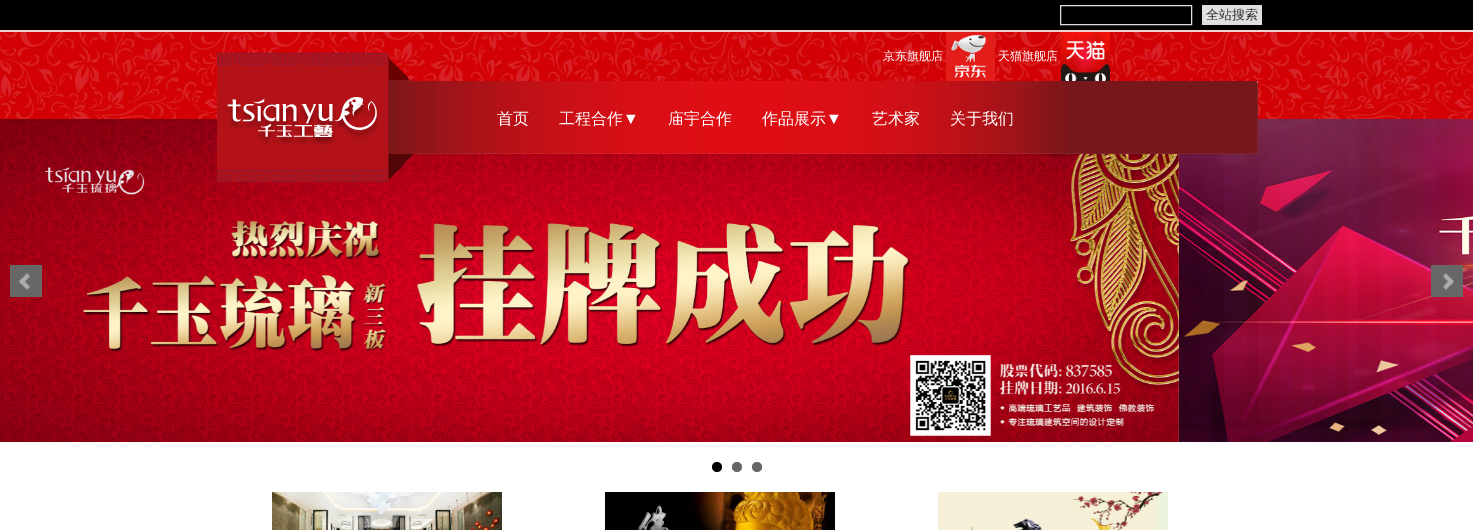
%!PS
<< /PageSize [1473 530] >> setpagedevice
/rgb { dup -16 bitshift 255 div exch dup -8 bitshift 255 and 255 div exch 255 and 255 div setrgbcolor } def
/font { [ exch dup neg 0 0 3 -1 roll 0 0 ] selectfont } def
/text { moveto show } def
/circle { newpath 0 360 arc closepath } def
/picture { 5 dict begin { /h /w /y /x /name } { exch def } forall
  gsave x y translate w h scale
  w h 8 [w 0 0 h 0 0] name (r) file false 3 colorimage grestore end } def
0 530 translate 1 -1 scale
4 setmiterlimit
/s1 { /WenQuanYiZenHei-Medium 13 font 16#333333 rgb } def
/s2 { /WenQuanYiZenHei-Medium 12 font 16#FFFFFF rgb } def
/s3 { /WenQuanYiZenHei-Medium 16 font 16#FFFFFF rgb } def
/s4 { /LiberationSerif-Regular 16 font 16#FFFFFF rgb } def
16#FFFFFF rgb
0 0 1473 530 rectfill
16#000000 rgb
0 0 1473 30 rectfill
16#F1D0D0 rgb
0 30 1473 2 rectfill
16#E0E0E0 rgb
1060.5 5.5 131 19 rectstroke
1202 5 60 20 rectfill
s1
(全站搜索) 1206 19 text
(pic1.raw) 0 32 1473 87 picture
(pic5.raw) 0 119 1179 323 picture
(pic6.raw) 1179 119 294 323 picture
(pic4.raw) 217 53 1041 129 picture
s2
(京东旗舰店) 883 60 text
(pic2.raw) 946 32 49 49 picture
(天猫旗舰店) 998 60 text
(pic3.raw) 1061 32 49 49 picture
s3
(首页) 497 124 text
(工程合作) 559 124 text
s4
(▼) 623 124 text
s3
(庙宇合作) 668 124 text
(作品展示) 762 124 text
s4
(▼) 826 124 text
s3
(艺术家) 872 124 text
(关于我们) 950 124 text
(pic7.raw) 10 265 32 32 picture
(pic8.raw) 1431 265 32 32 picture
16#000000 rgb
717 467 5 circle fill
16#666666 rgb
737 467 5 circle fill
757 467 5 circle fill
(pic9.raw) 272 492 230 38 picture
(pic10.raw) 605 492 230 38 picture
(pic11.raw) 938 492 230 38 picture
showpage
